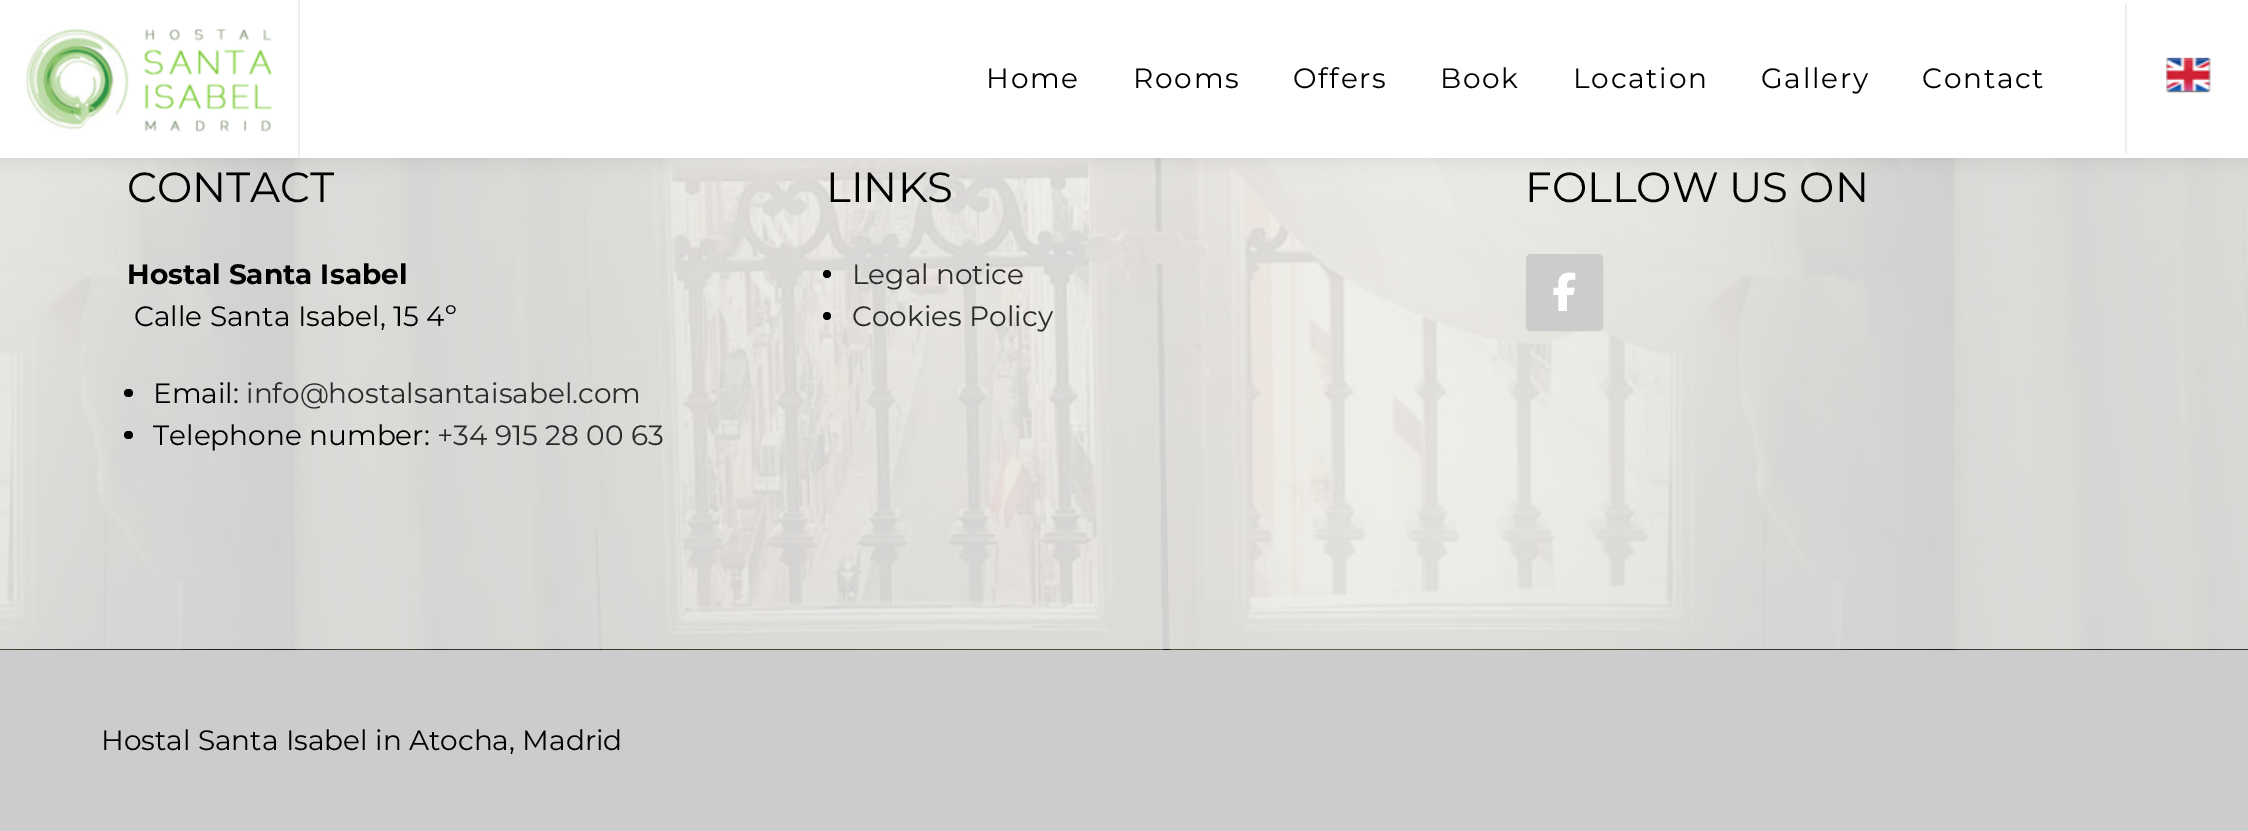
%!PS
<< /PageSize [2248 831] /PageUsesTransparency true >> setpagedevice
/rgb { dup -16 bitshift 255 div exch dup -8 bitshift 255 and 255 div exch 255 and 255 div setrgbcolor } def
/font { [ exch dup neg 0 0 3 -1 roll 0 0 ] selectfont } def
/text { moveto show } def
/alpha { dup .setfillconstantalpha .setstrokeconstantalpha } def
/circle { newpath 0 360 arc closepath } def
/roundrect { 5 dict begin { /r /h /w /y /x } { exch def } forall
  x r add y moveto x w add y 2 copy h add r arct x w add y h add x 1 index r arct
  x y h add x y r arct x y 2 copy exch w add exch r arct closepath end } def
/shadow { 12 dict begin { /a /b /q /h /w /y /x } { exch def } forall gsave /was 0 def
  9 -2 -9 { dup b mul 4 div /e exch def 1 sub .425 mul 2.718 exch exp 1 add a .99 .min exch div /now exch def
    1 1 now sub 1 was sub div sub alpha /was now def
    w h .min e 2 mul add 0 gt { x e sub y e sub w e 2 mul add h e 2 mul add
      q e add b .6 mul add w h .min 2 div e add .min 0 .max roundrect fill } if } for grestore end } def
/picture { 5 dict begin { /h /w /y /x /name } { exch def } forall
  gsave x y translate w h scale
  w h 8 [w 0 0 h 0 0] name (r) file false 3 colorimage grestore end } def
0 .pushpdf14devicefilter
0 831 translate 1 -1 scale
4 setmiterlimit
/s1 { /Montserrat-Regular 42 font 16#000000 rgb } def
/s2 { /Montserrat-Bold 28 font 16#000000 rgb } def
/s3 { /Montserrat-Regular 28 font 16#000000 rgb } def
/s4 { /Montserrat-Regular 28 font 16#2B2B2B rgb } def
16#CCCCCC rgb
0 0 2248 831 rectfill
(pic3.raw) 0 158 2248 492 picture
16#000000 rgb
0 0 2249 158 0 9 0.1 shadow
16#FFFFFF rgb
0 0 2248 158 rectfill
16#EEEEEE rgb
2125 4 2 150 rectfill
298 0 2 158 rectfill
(pic1.raw) 25 28 247 104 picture
/Montserrat-Regular 28 font
16#000000 rgb
986 88 moveto 1.75 0 (Home) ashow
1133 88 moveto 1.75 0 (Rooms) ashow
1293 88 moveto 1.75 0 (Offers) ashow
1440 88 moveto 1.75 0 (Book) ashow
1573 88 moveto 1.75 0 (Location) ashow
1761 88 moveto 1.75 0 (Gallery) ashow
1922 88 moveto 1.75 0 (Contact) ashow
(pic2.raw) 2166 57 45 36 picture
s1
(CONTACT) 127 202 text
s2
(Hostal Santa Isabel) 127 284 text
s3
(Calle Santa Isabel, 15 4º) 134 326 text
124 389 9 8 4 roundrect fill
(Email:) 153 403 text
s4
(info@hostalsantaisabel.com) 246 403 text
16#000000 rgb
124 431 9 8 4 roundrect fill
(Telephone number:) 153 445 text
s4
(+34 915 28 00 63) 437 445 text
s1
(LINKS) 826 202 text
827 274 4 circle fill
s4
(Legal notice) 852 284 text
16#000000 rgb
827 316 4 circle fill
s4
(Cookies Policy) 852 326 text
s1
(FOLLOW US ON) 1525 202 text
16#CCCCCC rgb
1527 255 75 75 4 roundrect gsave fill grestore
2 setlinewidth
stroke
(pic4.raw) 1553 272 23 39 picture
s3
(Hostal Santa Isabel in Atocha, Madrid) 101 750 text
.poppdf14devicefilter showpage
